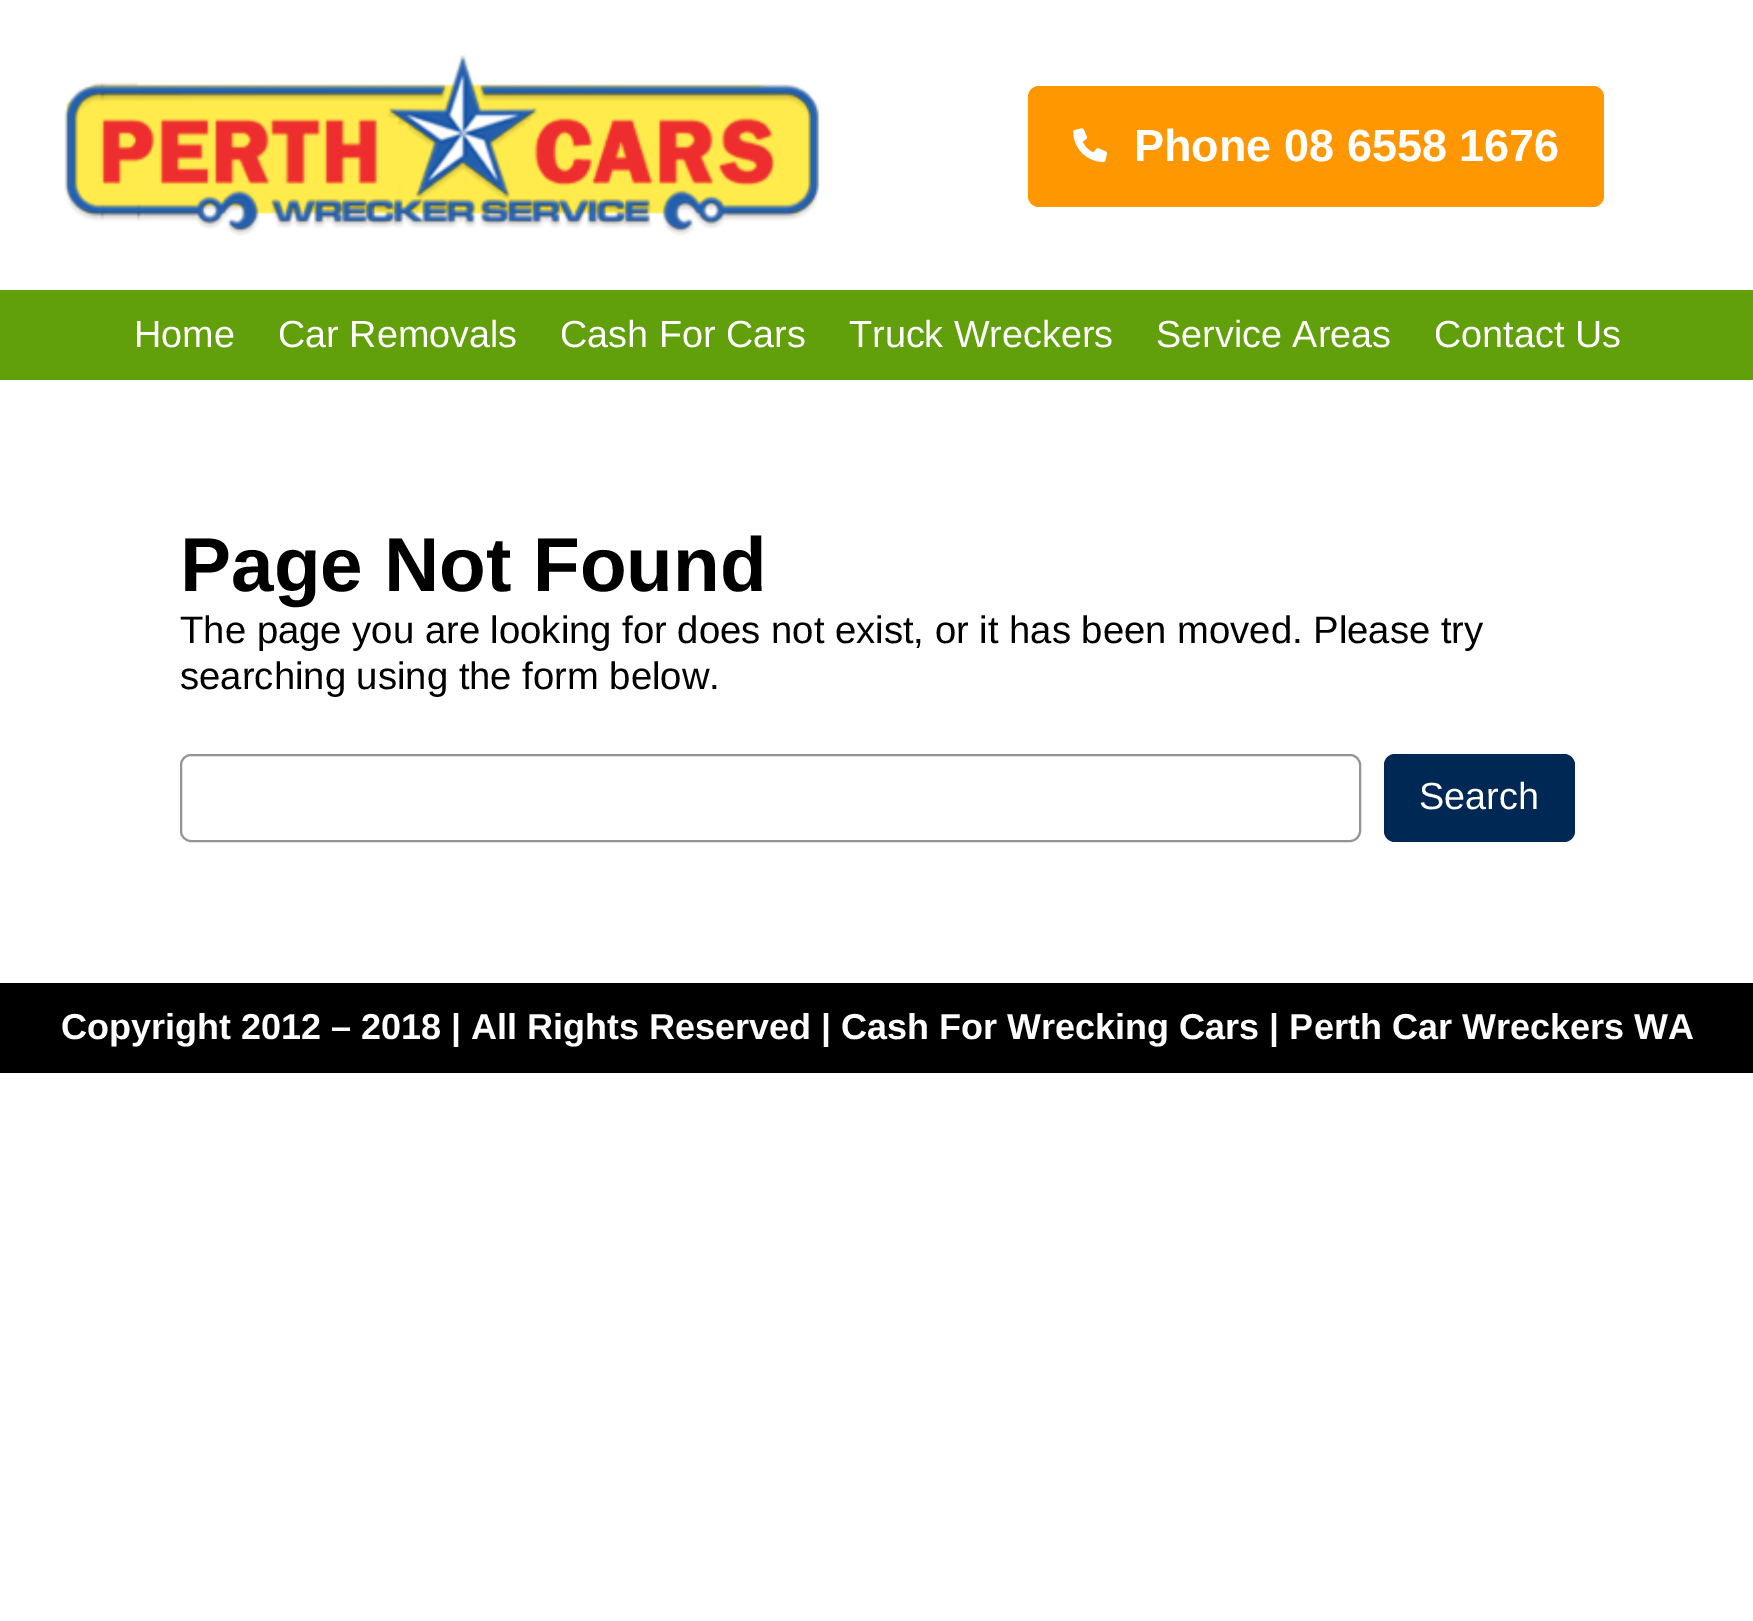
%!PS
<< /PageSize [1753 1621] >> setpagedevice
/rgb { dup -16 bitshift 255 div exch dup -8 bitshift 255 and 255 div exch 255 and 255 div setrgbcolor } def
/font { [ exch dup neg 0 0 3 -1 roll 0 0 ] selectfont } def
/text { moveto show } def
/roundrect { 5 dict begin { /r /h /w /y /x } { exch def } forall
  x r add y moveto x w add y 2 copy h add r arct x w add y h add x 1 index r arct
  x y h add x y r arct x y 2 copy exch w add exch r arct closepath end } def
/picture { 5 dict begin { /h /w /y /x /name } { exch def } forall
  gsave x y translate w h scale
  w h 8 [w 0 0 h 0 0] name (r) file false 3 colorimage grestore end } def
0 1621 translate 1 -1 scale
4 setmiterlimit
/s1 { /LiberationSans-Bold 45 font 16#FFFFFF rgb } def
/s2 { /LiberationSans-Regular 37.75 font 16#FFFFFF rgb } def
/s3 { /LiberationSans-Bold 76.5 font 16#000000 rgb } def
/s4 { /LiberationSans-Regular 38.25 font 16#000000 rgb } def
/s5 { /LiberationSans-Bold 36 font 16#FFFFFF rgb } def
16#FFFFFF rgb
0 0 1753 1621 rectfill
(pic1.raw) 64 55 756 181 picture
16#FF9800 rgb
1028 86 576 121 11 roundrect fill
(pic2.raw) 1073 128 34 34 picture
s1
(Phone 08 6558 1676) 1134 161 text
16#619F0B rgb
0 290 1753 90 rectfill
s2
(Home) 134 347 text
(Car Removals) 278 347 text
(Cash For Cars) 560 347 text
(Truck Wreckers) 849 347 text
(Service Areas) 1156 347 text
(Contact Us) 1434 347 text
s3
(Page Not Found) 180 591 text
s4
(The page you are looking for does not exist, or it has been moved. Please try) 180 643 text
(searching using the form below.) 180 689 text
16#949494 rgb
2 setlinewidth
181 755 1179 86 10 roundrect stroke
16#002854 rgb
1384 754 191 88 11 roundrect fill
s2
(Search) 1419 809 text
16#000000 rgb
0 983 1753 90 rectfill
s5
(Copyright 2012 – 2018 | All Rights Reserved | Cash For Wrecking Cars | Perth Car Wreckers WA) 61 1039 text
showpage
